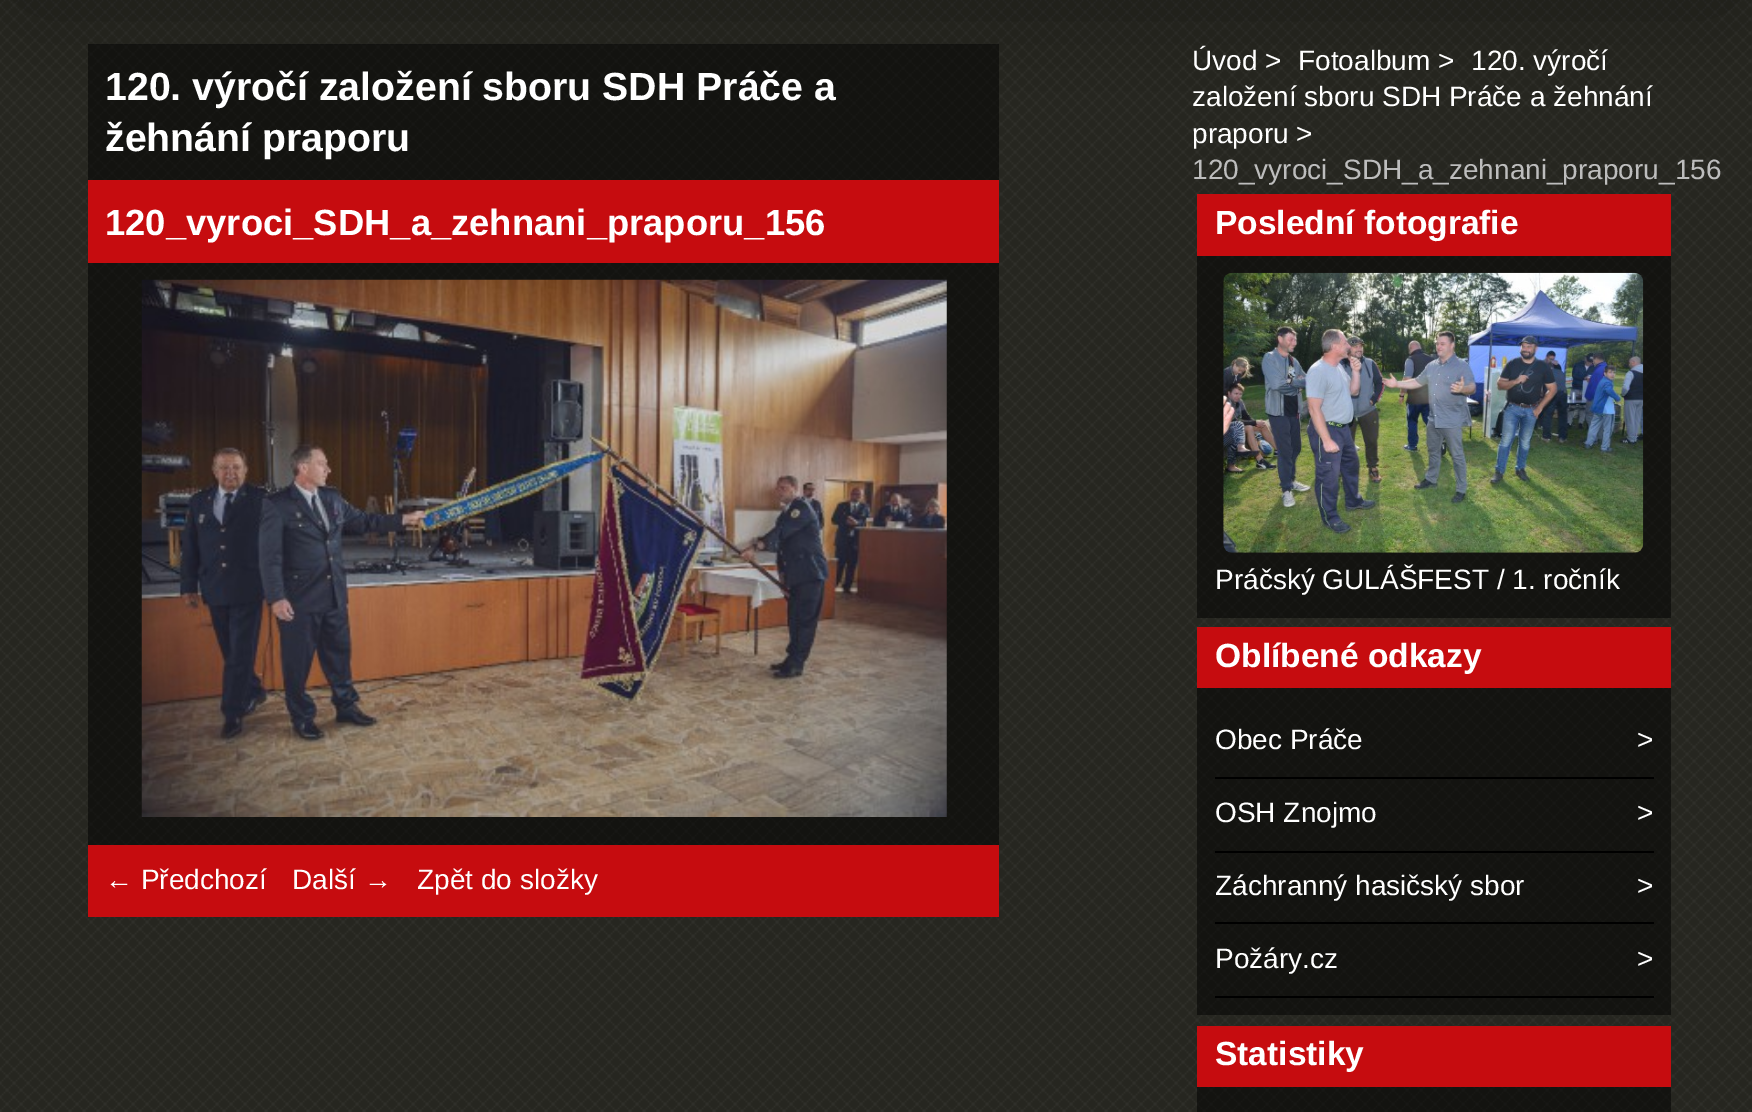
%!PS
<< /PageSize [1752 1112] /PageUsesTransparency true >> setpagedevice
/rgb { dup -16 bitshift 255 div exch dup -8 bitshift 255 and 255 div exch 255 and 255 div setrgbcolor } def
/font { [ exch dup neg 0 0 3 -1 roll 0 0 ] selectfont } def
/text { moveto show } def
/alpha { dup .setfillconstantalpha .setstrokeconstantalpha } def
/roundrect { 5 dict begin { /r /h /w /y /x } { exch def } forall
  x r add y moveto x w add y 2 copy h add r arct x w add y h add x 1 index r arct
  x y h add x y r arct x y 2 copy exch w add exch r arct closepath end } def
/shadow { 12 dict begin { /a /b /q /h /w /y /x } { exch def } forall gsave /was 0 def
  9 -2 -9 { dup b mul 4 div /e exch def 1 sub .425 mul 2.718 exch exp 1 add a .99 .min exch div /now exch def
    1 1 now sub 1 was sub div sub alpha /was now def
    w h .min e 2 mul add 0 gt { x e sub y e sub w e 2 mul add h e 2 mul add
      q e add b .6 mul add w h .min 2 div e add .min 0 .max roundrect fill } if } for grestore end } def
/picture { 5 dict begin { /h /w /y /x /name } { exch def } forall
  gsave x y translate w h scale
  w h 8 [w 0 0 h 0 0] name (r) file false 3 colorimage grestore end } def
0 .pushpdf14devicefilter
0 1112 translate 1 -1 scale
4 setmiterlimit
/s1 { /LiberationSans-Bold 39.25 font 16#FFFFFF rgb } def
/s2 { /LiberationSans-Bold 36.4 font 16#FFFFFF rgb } def
/s3 { /LiberationSans-Regular 28 font 16#FFFFFF rgb } def
/s4 { /LiberationSans-Regular 28 font 16#BDBDBD rgb } def
/s5 { /LiberationSans-Bold 33.5 font 16#FFFFFF rgb } def
16#25251F rgb
0 0 1752 1112 rectfill
(pic1.raw) 0 0 1752 1112 picture
0.5 alpha
16#000000 rgb
88 44 911 136 rectfill
1 alpha
32 -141 1690 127 0 47 0.45 shadow
s1
(120. výročí založení sboru SDH Práče a) 105 100 text
(žehnání praporu) 105 151 text
16#C60C0F rgb
88 180 911 83 rectfill
s2
(120_vyroci_SDH_a_zehnani_praporu_156) 105 235 text
0.5 alpha
16#000000 rgb
88 263 911 582 rectfill
1 alpha
(pic2.raw) 141 279 806 538 picture
16#C60C0F rgb
88 845 911 72 rectfill
s3
(← Předchozí) 105 889 text
(Další →) 292 889 text
(Zpět do složky) 417 889 text
(Úvod >) 1192 70 text
(Fotoalbum >) 1298 70 text
(120. výročí) 1471 70 text
(založení sboru SDH Práče a žehnání) 1192 106 text
(praporu >) 1192 143 text
s4
(120_vyroci_SDH_a_zehnani_praporu_156) 1192 179 text
16#C60C0F rgb
1197 194 474 62 rectfill
s5
(Poslední fotografie) 1215 234 text
0.5 alpha
16#000000 rgb
1197 256 474 362 rectfill
1 alpha
(pic3.raw) 1223 272 421 281 picture
s3
(Práčský GULÁŠFEST / 1. ročník) 1215 589 text
16#C60C0F rgb
1197 627 474 61 rectfill
s5
(Oblíbené odkazy) 1215 667 text
0.5 alpha
16#000000 rgb
1197 688 474 327 rectfill
1 alpha
1215 777 439 2 rectfill
s3
(Obec Práče) 1215 749 text
(>) 1637 749 text
16#000000 rgb
1215 851 439 2 rectfill
s3
(OSH Znojmo) 1215 822 text
(>) 1637 822 text
16#000000 rgb
1215 922 439 2 rectfill
s3
(Záchranný hasičský sbor) 1215 895 text
(>) 1637 895 text
16#000000 rgb
1215 996 439 2 rectfill
s3
(Požáry.cz) 1215 968 text
(>) 1637 968 text
16#C60C0F rgb
1197 1026 474 61 rectfill
s5
(Statistiky) 1215 1065 text
0.5 alpha
16#000000 rgb
1197 1087 474 25 rectfill
.poppdf14devicefilter showpage
